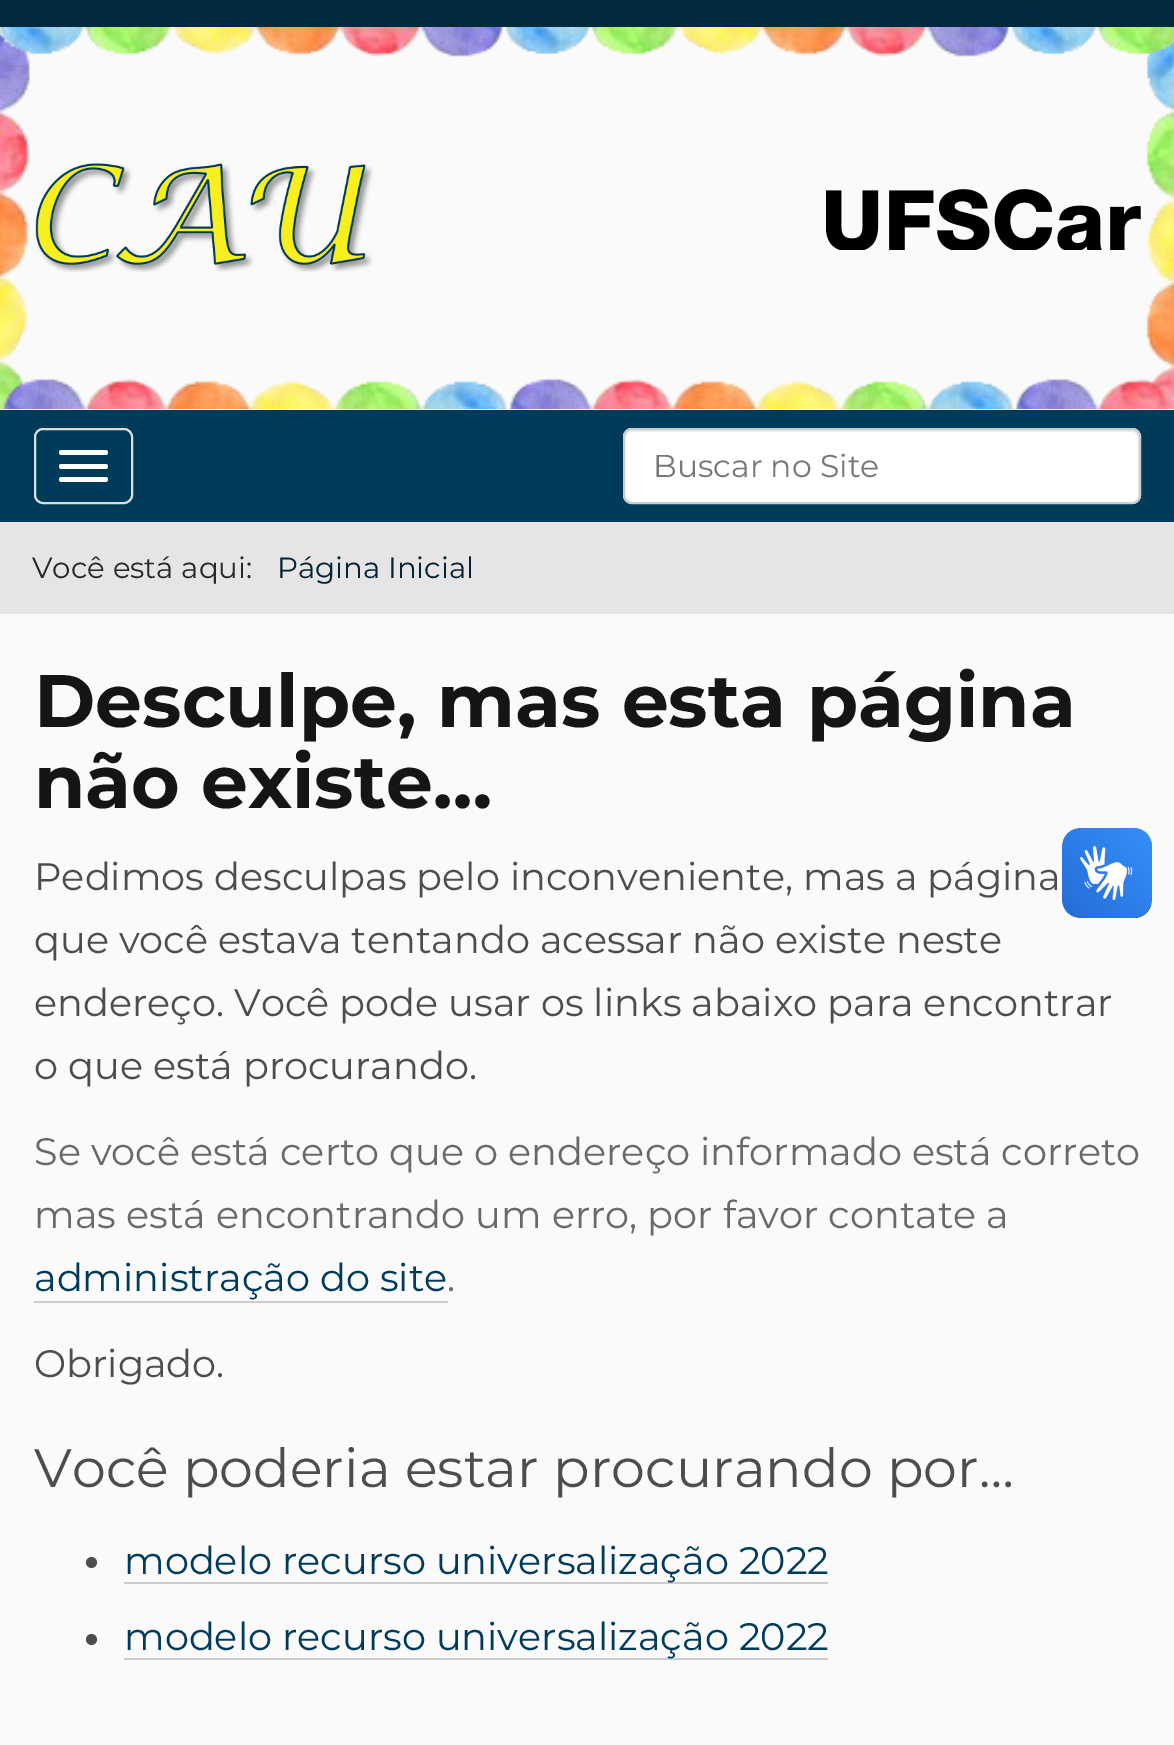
%!PS
<< /PageSize [1174 1745] >> setpagedevice
/rgb { dup -16 bitshift 255 div exch dup -8 bitshift 255 and 255 div exch 255 and 255 div setrgbcolor } def
/font { [ exch dup neg 0 0 3 -1 roll 0 0 ] selectfont } def
/text { moveto show } def
/circle { newpath 0 360 arc closepath } def
/roundrect { 5 dict begin { /r /h /w /y /x } { exch def } forall
  x r add y moveto x w add y 2 copy h add r arct x w add y h add x 1 index r arct
  x y h add x y r arct x y 2 copy exch w add exch r arct closepath end } def
/picture { 5 dict begin { /h /w /y /x /name } { exch def } forall
  gsave x y translate w h scale
  w h 8 [w 0 0 h 0 0] name (r) file false 3 colorimage grestore end } def
0 1745 translate 1 -1 scale
4 setmiterlimit
/s1 { /Montserrat-Regular 31.5 font 16#777777 rgb } def
/s2 { /Montserrat-Regular 29.25 font 16#282828 rgb } def
/s3 { /Montserrat-Regular 29.25 font 16#032234 rgb } def
/s4 { /Montserrat-Bold 74.25 font 16#151515 rgb } def
/s5 { /Montserrat-Regular 38.25 font 16#4D4D4D rgb } def
/s6 { /Montserrat-Regular 38.25 font 16#696969 rgb } def
/s7 { /Montserrat-Regular 38.25 font 16#013B5A rgb } def
/s8 { /Montserrat-Regular 54 font 16#4D4D4D rgb } def
16#FAFAFA rgb
0 0 1174 1745 rectfill
16#013B5A rgb
0 410 1174 112 rectfill
16#DDDDDD rgb
2 setlinewidth
35 429 97 74 8 roundrect stroke
16#FFFFFF rgb
59 450 49 5 2.5 roundrect fill
59 464 49 5 2.5 roundrect fill
59 477 49 5 2.5 roundrect fill
(pic1.raw) 0 27 1174 382 picture
16#03293E rgb
0 0 1174 27 rectfill
(pic2.raw) 826 189 315 61 picture
(pic3.raw) 35 163 338 109 picture
16#FFFFFF rgb
623 428 518 76 9 roundrect fill
16#ECECEC rgb
632 432 moveto 1132 432 lineto 1135 432 1138 435 1138 439 curveto 1138 499 lineto 1139 498 1139 496 1139 495 curveto 1139 437 lineto 1139 433 1136 430 1132 430 curveto 633 430 lineto 629 430 626 433 626 437 curveto 626 439 lineto 626 435 629 432 632 432 curveto closepath fill
16#CCCCCC rgb
624 429 516 74 8 roundrect stroke
s1
(Buscar no Site) 653 477 text
16#E6E4E4 rgb
0 522 1174 92 rectfill
s2
(Você está aqui:) 32 578 text
s3
(Página Inicial) 277 578 text
s4
(Desculpe, mas esta página) 34 727 text
(não existe…) 34 808 text
s5
(Pedimos desculpas pelo inconveniente, mas a página) 34 890 text
(que você estava tentando acessar não existe neste) 34 953 text
(endereço. Você pode usar os links abaixo para encontrar) 34 1016 text
(o que está procurando.) 34 1079 text
s6
(Se você está certo que o endereço informado está correto) 34 1165 text
(mas está encontrando um erro, por favor contate a) 34 1228 text
s7
(administração do site) 34 1291 text
16#CCCCCC rgb
34 1301 414 2 rectfill
s6
(.) 447 1291 text
s5
(Obrigado.) 34 1377 text
s8
(Você poderia estar procurando por…) 34 1487 text
91.5 1562.5 5.5 circle fill
16#CCCCCC rgb
124 1582 704 2 rectfill
s7
(modelo recurso universalização 2022) 124 1574 text
16#4D4D4D rgb
91.5 1639.5 5.5 circle fill
16#CCCCCC rgb
124 1658 704 2 rectfill
s7
(modelo recurso universalização 2022) 124 1650 text
(pic4.raw) 1062 828 90 90 picture
(pic5.raw) 1062 828 90 90 picture
showpage
